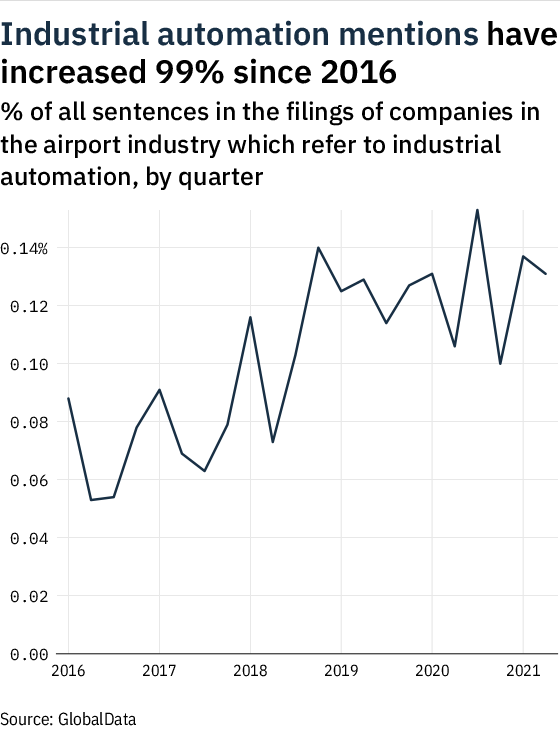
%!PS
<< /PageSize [560 730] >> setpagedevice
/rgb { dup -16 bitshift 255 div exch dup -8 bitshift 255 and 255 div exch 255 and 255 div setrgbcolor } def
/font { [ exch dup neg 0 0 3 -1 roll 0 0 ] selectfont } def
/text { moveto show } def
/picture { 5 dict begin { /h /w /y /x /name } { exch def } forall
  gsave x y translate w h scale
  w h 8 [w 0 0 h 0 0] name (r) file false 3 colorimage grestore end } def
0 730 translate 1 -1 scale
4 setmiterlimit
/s1 { /IBMPlexSans-SemiBold 32.5 font 16#182F44 rgb } def
/s2 { /IBMPlexSans-SemiBold 32.5 font 16#000000 rgb } def
/s3 { /IBMPlexSans-Medium 25 font 16#000000 rgb } def
/s4 { /IBMPlexMono-Regular 16 font 16#000000 rgb } def
/s5 { /IBMPlexSansCondensed-Regular 16 font 16#000000 rgb } def
/s6 { /IBMPlexSansCondensed-Regular 17.5 font 16#000000 rgb } def
16#FFFFFF rgb
0 0 560 730 rectfill
16#DDDDDD rgb
0 0 560 1 rectfill
s1
(Industrial automation mentions) 0 45 text
s2
(have) 486 45 text
(increased 99% since 2016) 0 83 text
s3
(% of all sentences in the filings of companies in) 0 120 text
(the airport industry which refer to industrial) 0 153 text
(automation, by quarter) 0 185 text
(pic1.raw) 55 208 504 447 picture
s4
(0.14%) 0 254 text
(0.12) 10 312 text
(0.10) 10 370 text
(0.08) 10 428 text
(0.06) 10 486 text
(0.04) 10 544 text
(0.02) 10 602 text
(0.00) 10 660 text
s5
(2016) 51 676 text
(2017) 142 676 text
(2018) 233 676 text
(2019) 324 676 text
(2020) 415 676 text
(2021) 506 676 text
s6
(Source: GlobalData) 0 725 text
showpage
